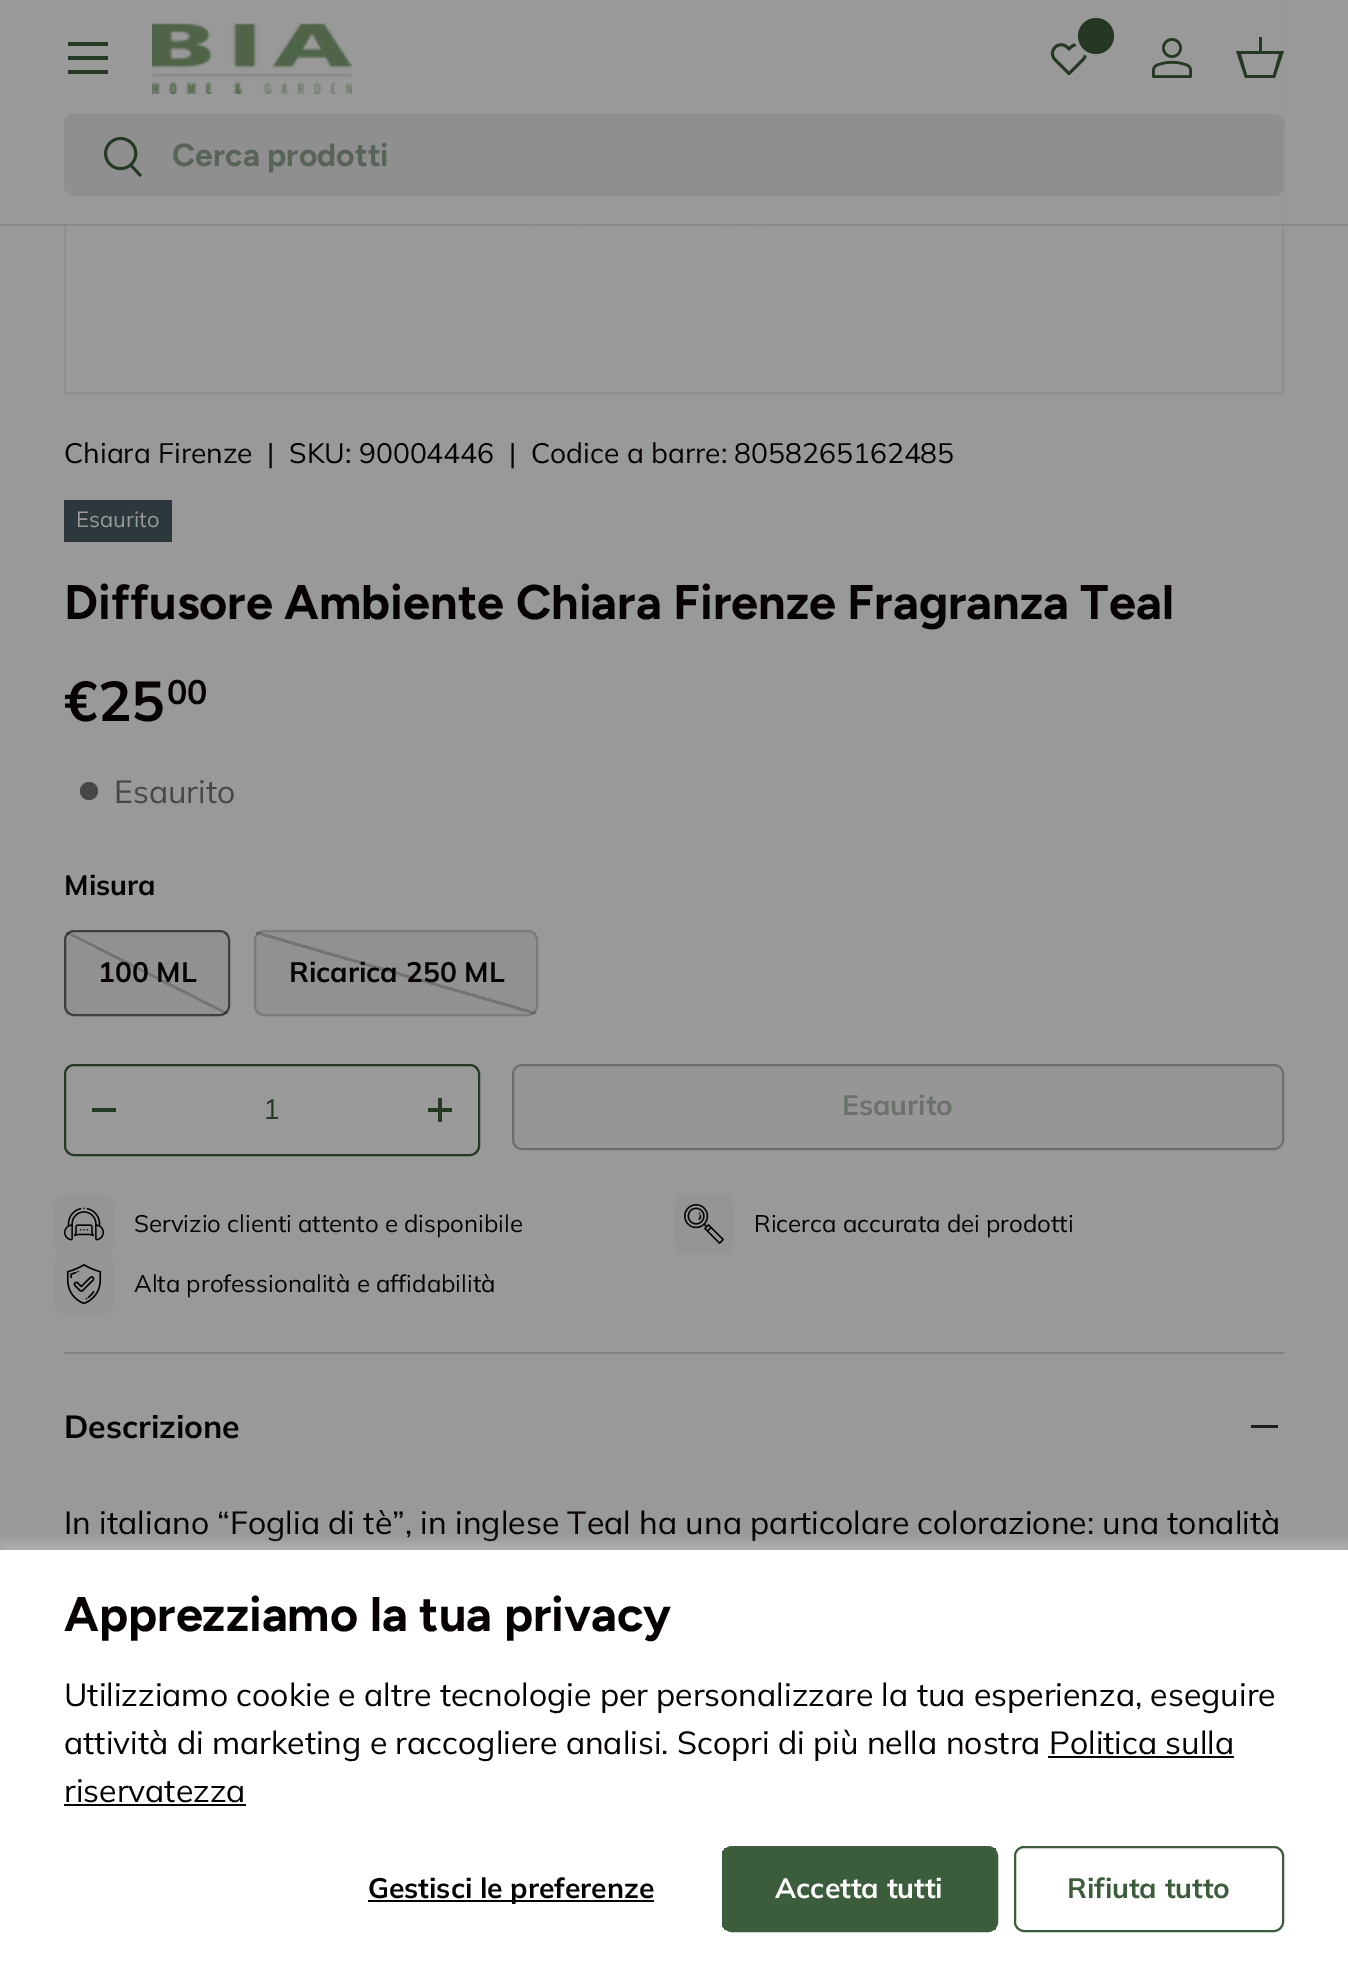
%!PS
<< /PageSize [1348 1963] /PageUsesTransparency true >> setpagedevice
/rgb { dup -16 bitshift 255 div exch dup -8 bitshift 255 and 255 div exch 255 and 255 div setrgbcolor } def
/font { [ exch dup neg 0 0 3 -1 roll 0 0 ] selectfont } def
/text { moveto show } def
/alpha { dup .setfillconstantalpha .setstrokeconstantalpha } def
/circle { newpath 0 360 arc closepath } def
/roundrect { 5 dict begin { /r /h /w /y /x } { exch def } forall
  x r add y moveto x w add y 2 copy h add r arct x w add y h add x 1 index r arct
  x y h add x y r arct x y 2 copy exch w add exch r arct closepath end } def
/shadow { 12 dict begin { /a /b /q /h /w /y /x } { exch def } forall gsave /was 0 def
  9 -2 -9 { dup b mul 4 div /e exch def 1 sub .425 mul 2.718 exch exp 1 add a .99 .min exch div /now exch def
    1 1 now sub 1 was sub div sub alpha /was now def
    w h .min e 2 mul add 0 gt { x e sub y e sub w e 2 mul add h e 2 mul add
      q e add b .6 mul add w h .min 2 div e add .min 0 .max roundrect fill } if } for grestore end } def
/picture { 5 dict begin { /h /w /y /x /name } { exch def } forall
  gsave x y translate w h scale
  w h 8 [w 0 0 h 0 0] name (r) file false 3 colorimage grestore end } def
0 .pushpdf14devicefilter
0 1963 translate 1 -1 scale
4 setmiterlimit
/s1 { /Figtree-Bold 32 font 16#596459 rgb } def
/s2 { /Muli-Regular 28.2 font 16#050201 rgb } def
/s3 { /Muli-Regular 22 font 16#999999 rgb } def
/s4 { /Figtree-Bold 48.6 font 16#050201 rgb } def
/s5 { /Muli-Bold 56 font 16#050201 rgb } def
/s6 { /Muli-Bold 34 font 16#050201 rgb } def
/s7 { /Muli-Regular 32 font 16#474747 rgb } def
/s8 { /Muli-Bold 28.2 font 16#050201 rgb } def
/s9 { /Muli-Regular 28.2 font 16#243824 rgb } def
/s10 { /Muli-Bold 28.2 font 16#6A726A rgb } def
/s11 { /Muli-Regular 24 font 16#050201 rgb } def
/s12 { /Muli-Bold 32 font 16#050201 rgb } def
/s13 { /Muli-Regular 32 font 16#050201 rgb } def
/s14 { /Muli-Bold 28.2 font 16#FFFFFF rgb } def
/s15 { /Muli-Bold 28.2 font 16#3C5D3C rgb } def
16#999999 rgb
0 0 1348 1963 rectfill
16#8F8F8F rgb
2 setlinewidth
65 -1 1218 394 rectstroke
16#999999 rgb
64 0 1220 224 rectfill
16#888B88 rgb
0 224 1348 2 rectfill
16#243824 rgb
68 42 40 4 rectfill
68 70 40 4 rectfill
68 56 40 4 rectfill
(pic1.raw) 152 23 200 71 picture
(pic2.raw) 1050 43 38 33 picture
16#999999 rgb
4 setlinewidth
1096 36 20 circle stroke
16#243824 rgb
1096 36 18 circle fill
(pic3.raw) 1152 38 40 40 picture
1259 51 moveto 1259 37 lineto 1262 37 lineto 1262 51 lineto 1284 51 lineto 1275 78 lineto 1245 78 lineto 1236 51 lineto closepath 1241 54 moveto 1247 75 lineto 1273 75 lineto 1279 54 lineto closepath fill
16#8E8F8E rgb
64 114 1220 82 10 roundrect fill
(pic4.raw) 104 136 38 41 picture
s1
(Cerca prodotti) 172 166 text
(pic5.raw) 66 226 1216 166 picture
s2
(Chiara Firenze) 64 463 text
(|) 267 463 text
(SKU: 90004446) 289 463 text
(|) 509 463 text
(Codice a barre: 8058265162485) 531 463 text
16#2C383B rgb
64 500 108 42 rectfill
s3
(Esaurito) 76 527 text
s4
(Diffusore Ambiente Chiara Firenze Fragranza Teal) 64 619 text
s5
(€25) 64 721 text
s6
(00) 167 704 text
16#474747 rgb
89 791 9 circle fill
s7
(Esaurito) 114 803 text
s8
(Misura) 64 895 text
gsave
64 930 166 86 10 roundrect clip newpath
gsave 66 932 moveto 228 932 lineto 228 1014 lineto 66 1014 lineto closepath clip newpath
<< /ShadingType 2 /ColorSpace /DeviceRGB /Coords [180 908 114 1038] /Extend [true true] /Function << /FunctionType 3 /Domain [0 1] /Functions [<< /FunctionType 2 /Domain [0 1] /C0 [0.6 0.6 0.6] /C1 [0.6 0.6 0.6] /N 1 >> << /FunctionType 2 /Domain [0 1] /C0 [0.486 0.482 0.478] /C1 [0.486 0.482 0.478] /N 1 >> << /FunctionType 2 /Domain [0 1] /C0 [0.6 0.6 0.6] /C1 [0.6 0.6 0.6] /N 1 >>] /Bounds [0.49 0.51] /Encode [0 1 0 1 0 1] >> >> shfill grestore
grestore
0.6 alpha
2 setlinewidth
65 931 164 84 9 roundrect stroke
0.05 alpha
66 932 162 82 rectfill
1 alpha
(100 ML) 98 982 text
gsave
254 930 284 86 10 roundrect clip newpath
gsave 256 932 moveto 536 932 lineto 536 1014 lineto 256 1014 lineto closepath clip newpath
<< /ShadingType 2 /ColorSpace /DeviceRGB /Coords [418 897 374 1049] /Extend [true true] /Function << /FunctionType 3 /Domain [0 1] /Functions [<< /FunctionType 2 /Domain [0 1] /C0 [0.6 0.6 0.6] /C1 [0.6 0.6 0.6] /N 1 >> << /FunctionType 2 /Domain [0 1] /C0 [0.486 0.482 0.478] /C1 [0.486 0.482 0.478] /N 1 >> << /FunctionType 2 /Domain [0 1] /C0 [0.6 0.6 0.6] /C1 [0.6 0.6 0.6] /N 1 >>] /Bounds [0.49 0.51] /Encode [0 1 0 1 0 1] >> >> shfill grestore
grestore
0.2 alpha
255 931 282 84 9 roundrect stroke
0.05 alpha
256 932 280 82 rectfill
1 alpha
(Ricarica 250 ML) 289 982 text
16#243824 rgb
65 1065 414 90 9 roundrect stroke
92 1108 24 4 rectfill
s9
(1) 263 1119 text
428 1108 24 4 rectfill
438 1098 4 24 rectfill
gsave
512 1064 772 86 10 roundrect clip newpath
gsave 514 1066 moveto 1284 1066 lineto 1284 1148 lineto 514 1148 lineto closepath clip newpath
<< /ShadingType 2 /ColorSpace /DeviceRGB /Coords [572 834 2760 1380] /Extend [true true] /Function << /FunctionType 3 /Domain [0 1] /Functions [<< /FunctionType 2 /Domain [0 1] /C0 [0.588 0.588 0.588] /C1 [0.588 0.588 0.588] /N 1 >> << /FunctionType 2 /Domain [0 1] /C0 [0.6 0.6 0.6] /C1 [0.6 0.6 0.6] /N 1 >>] /Bounds [0.6] /Encode [0 1 0 1] >> >> shfill grestore
grestore
16#6A726A rgb
513 1065 770 84 9 roundrect stroke
s10
(Esaurito) 842 1115 text
16#959596 rgb
54 1194 60 60 10 roundrect fill
(pic6.raw) 64 1207 40 34 picture
s11
(Servizio clienti attento e disponibile) 134 1232 text
16#959596 rgb
674 1194 60 60 10 roundrect fill
(pic7.raw) 684 1204 40 40 picture
s11
(Ricerca accurata dei prodotti) 754 1232 text
16#959596 rgb
54 1254 60 60 10 roundrect fill
(pic8.raw) 66 1264 36 40 picture
s11
(Alta professionalità e affidabilità) 134 1292 text
16#838282 rgb
64 1352 1220 2 rectfill
s12
(Descrizione) 64 1438 text
16#1E1B1A rgb
1251 1425 27 3 rectfill
s13
(In italiano “Foglia di tè”, in inglese Teal ha una particolare colorazione: una tonalità) 64 1534 text
16#D3D2D2 rgb
0 1542 1348 414 0 4 0.35 shadow
16#FFFFFF rgb
0 1550 1348 413 rectfill
s4
(Apprezziamo la tua privacy) 64 1631 text
s13
(Utilizziamo cookie e altre tecnologie per personalizzare la tua esperienza, eseguire) 64 1706 text
(attività di marketing e raccogliere analisi. Scopri di più nella nostra Politica sulla) 64 1754 text
(riservatezza) 64 1802 text
16#090302 rgb
1048 1756 186 2 rectfill
64 1804 182 2 rectfill
368 1900 286 2 rectfill
s8
(Gestisci le preferenze) 368 1898 text
gsave
722 1846 276 86 10 roundrect clip newpath
gsave 722 1848 moveto 996 1848 lineto 996 1930 lineto 722 1930 lineto closepath clip newpath
<< /ShadingType 2 /ColorSpace /DeviceRGB /Coords [194 1791 982 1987] /Extend [true true] /Function << /FunctionType 3 /Domain [0 1] /Functions [<< /FunctionType 2 /Domain [0 1] /C0 [0.376 0.494 0.376] /C1 [0.376 0.494 0.376] /N 1 >> << /FunctionType 2 /Domain [0 1] /C0 [0.235 0.365 0.235] /C1 [0.235 0.365 0.235] /N 1 >>] /Bounds [0.6] /Encode [0 1 0 1] >> >> shfill grestore
grestore
16#3C5D3C rgb
723 1847 274 84 9 roundrect stroke
s14
(Accetta tutti) 775 1898 text
16#3C5D3C rgb
1015 1847 268 84 9 roundrect stroke
(Rifiuta tutto) 1067 1898 text
.poppdf14devicefilter showpage
